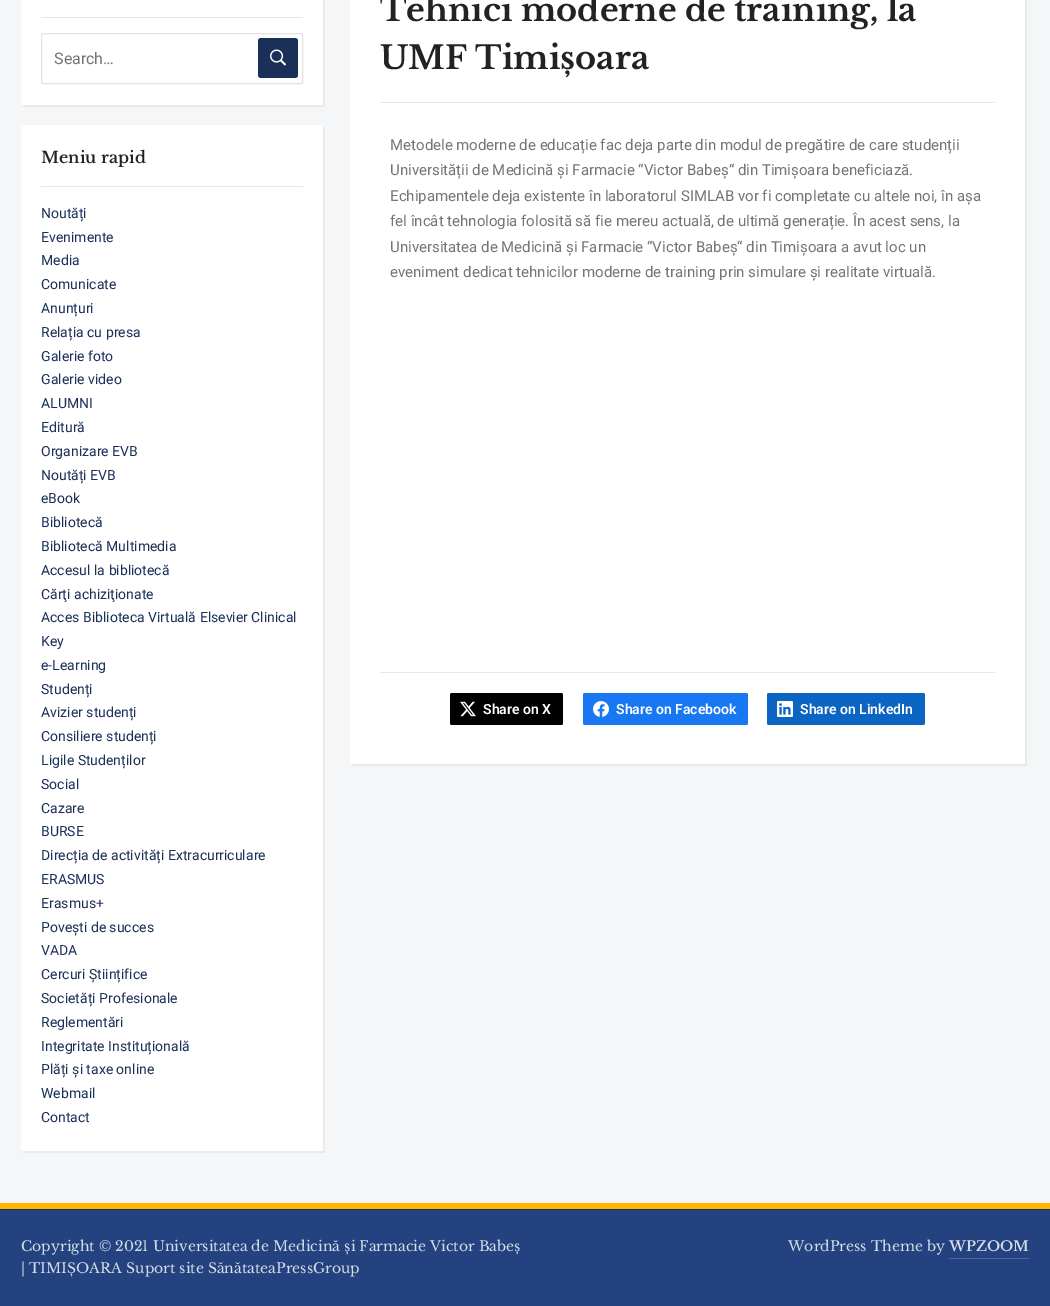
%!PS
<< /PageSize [1050 1306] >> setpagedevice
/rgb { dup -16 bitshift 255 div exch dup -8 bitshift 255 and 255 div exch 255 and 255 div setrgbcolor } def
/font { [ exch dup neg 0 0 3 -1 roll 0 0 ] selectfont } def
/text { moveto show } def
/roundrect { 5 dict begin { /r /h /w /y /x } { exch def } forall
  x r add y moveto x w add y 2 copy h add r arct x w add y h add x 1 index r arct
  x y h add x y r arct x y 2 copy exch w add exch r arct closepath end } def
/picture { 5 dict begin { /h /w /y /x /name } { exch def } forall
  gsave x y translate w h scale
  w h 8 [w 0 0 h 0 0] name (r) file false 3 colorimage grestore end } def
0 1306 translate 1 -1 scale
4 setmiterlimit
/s1 { /Roboto-Regular 16 font 16#757575 rgb } def
/s2 { /LibreBaskerville-SemiBold 16 font 16#222222 rgb } def
/s3 { /Roboto-Regular 14 font 16#1B3058 rgb } def
/s4 { /LibreBaskerville-Bold 32 font 16#222222 rgb } def
/s5 { /Roboto-Regular 15 font 16#757575 rgb } def
/s6 { /Roboto-SemiBold 14 font 16#FFFFFF rgb } def
/s7 { /LibreBaskerville-Regular 14 font 16#D3DDE6 rgb } def
/s8 { /LibreBaskerville-SemiBold 14 font 16#D3DDE6 rgb } def
16#F4F6F8 rgb
0 0 1050 1306 rectfill
16#E8EAEC rgb
23 105 moveto 23 107 lineto 325 107 lineto 325 -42 lineto 323 -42 lineto 323 105 lineto closepath fill
16#FFFFFF rgb
21 0 302 105 rectfill
16#E6E6E6 rgb
41 17 262 1 rectfill
16#E2E2E2 rgb
41.5 33.5 261 50 1.5 roundrect stroke
s1
(Search…) 54 64 text
16#1B3058 rgb
258 38 40 40 3 roundrect fill
(pic1.raw) 270 49 16 17 picture
16#E8EAEC rgb
23 1151 moveto 23 1153 lineto 325 1153 lineto 325 127 lineto 323 127 lineto 323 1151 lineto closepath fill
16#FFFFFF rgb
21 125 302 1026 rectfill
16#E6E6E6 rgb
41 186 262 1 rectfill
s2
(Meniu rapid) 41 163 text
s3
(Noutăți) 41 218 text
(Evenimente) 41 242 text
(Media) 41 265 text
(Comunicate) 41 289 text
(Anunțuri) 41 313 text
(Relația cu presa) 41 337 text
(Galerie foto) 41 361 text
(Galerie video) 41 384 text
(ALUMNI) 41 408 text
(Editură) 41 432 text
(Organizare EVB) 41 456 text
(Noutăți EVB) 41 480 text
(eBook) 41 503 text
(Bibliotecă) 41 527 text
(Bibliotecă Multimedia) 41 551 text
(Accesul la bibliotecă) 41 575 text
(Cărţi achiziţionate) 41 599 text
(Acces Biblioteca Virtuală Elsevier Clinical) 41 622 text
(Key) 41 646 text
(e-Learning) 41 670 text
(Studenți) 41 694 text
(Avizier studenți) 41 717 text
(Consiliere studenți) 41 741 text
(Ligile Studenților) 41 765 text
(Social) 41 789 text
(Cazare) 41 813 text
(BURSE) 41 836 text
(Direcția de activități Extracurriculare) 41 860 text
(ERASMUS) 41 884 text
(Erasmus+) 41 908 text
(Povești de succes) 41 932 text
(VADA) 41 955 text
(Cercuri Științifice) 41 979 text
(Societăți Profesionale) 41 1003 text
(Reglementări) 41 1027 text
(Integritate Instituțională) 41 1051 text
(Plăți și taxe online) 41 1074 text
(Webmail) 41 1098 text
(Contact) 41 1122 text
16#E8EAEC rgb
352 764 moveto 352 766 lineto 1027 766 lineto 1027 -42 lineto 1025 -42 lineto 1025 764 lineto closepath fill
16#FFFFFF rgb
350 0 675 764 rectfill
s4
(Tehnici moderne de training, la) 380 21 text
(UMF Timișoara) 380 69 text
16#E7E7E7 rgb
380 102 615 1 rectfill
s5
(Metodele moderne de educație fac deja parte din modul de pregătire de care studenții) 390 150 text
(Universității de Medicină și Farmacie “Victor Babeș“ din Timișoara beneficiază.) 390 175 text
(Echipamentele deja existente în laboratorul SIMLAB vor fi completate cu altele noi, în așa) 390 201 text
(fel încât tehnologia folosită să fie mereu actuală, de ultimă generație. În acest sens, la) 390 226 text
(Universitatea de Medicină și Farmacie “Victor Babeș“ din Timișoara a avut loc un) 390 252 text
(eveniment dedicat tehnicilor moderne de training prin simulare și realitate virtuală.) 390 277 text
16#E7E7E7 rgb
380 672 615 1 rectfill
16#000000 rgb
450 693 113 32 2 roundrect fill
(pic2.raw) 460 701 16 16 picture
s6
(Share on X) 483 714 text
16#1877F2 rgb
583 693 165 32 2 roundrect fill
(pic3.raw) 593 701 16 16 picture
s6
(Share on Facebook) 616 714 text
16#0A66C2 rgb
767 693 158 32 2 roundrect fill
(pic4.raw) 777 701 16 16 picture
s6
(Share on LinkedIn) 800 714 text
16#1B3058 rgb
0 1209 1050 1 rectfill
16#FFB400 rgb
0 1203 1050 6 rectfill
16#23427F rgb
0 1210 1050 96 rectfill
s7
(Copyright © 2021 Universitatea de Medicină și Farmacie Victor Babeș) 21 1251 text
(| TIMIȘOARA Suport site SănătateaPressGroup) 21 1273 text
(WordPress Theme by) 788 1251 text
s8
(WPZOOM) 949 1251 text
16#4F6899 rgb
949 1258 80 1 rectfill
showpage
